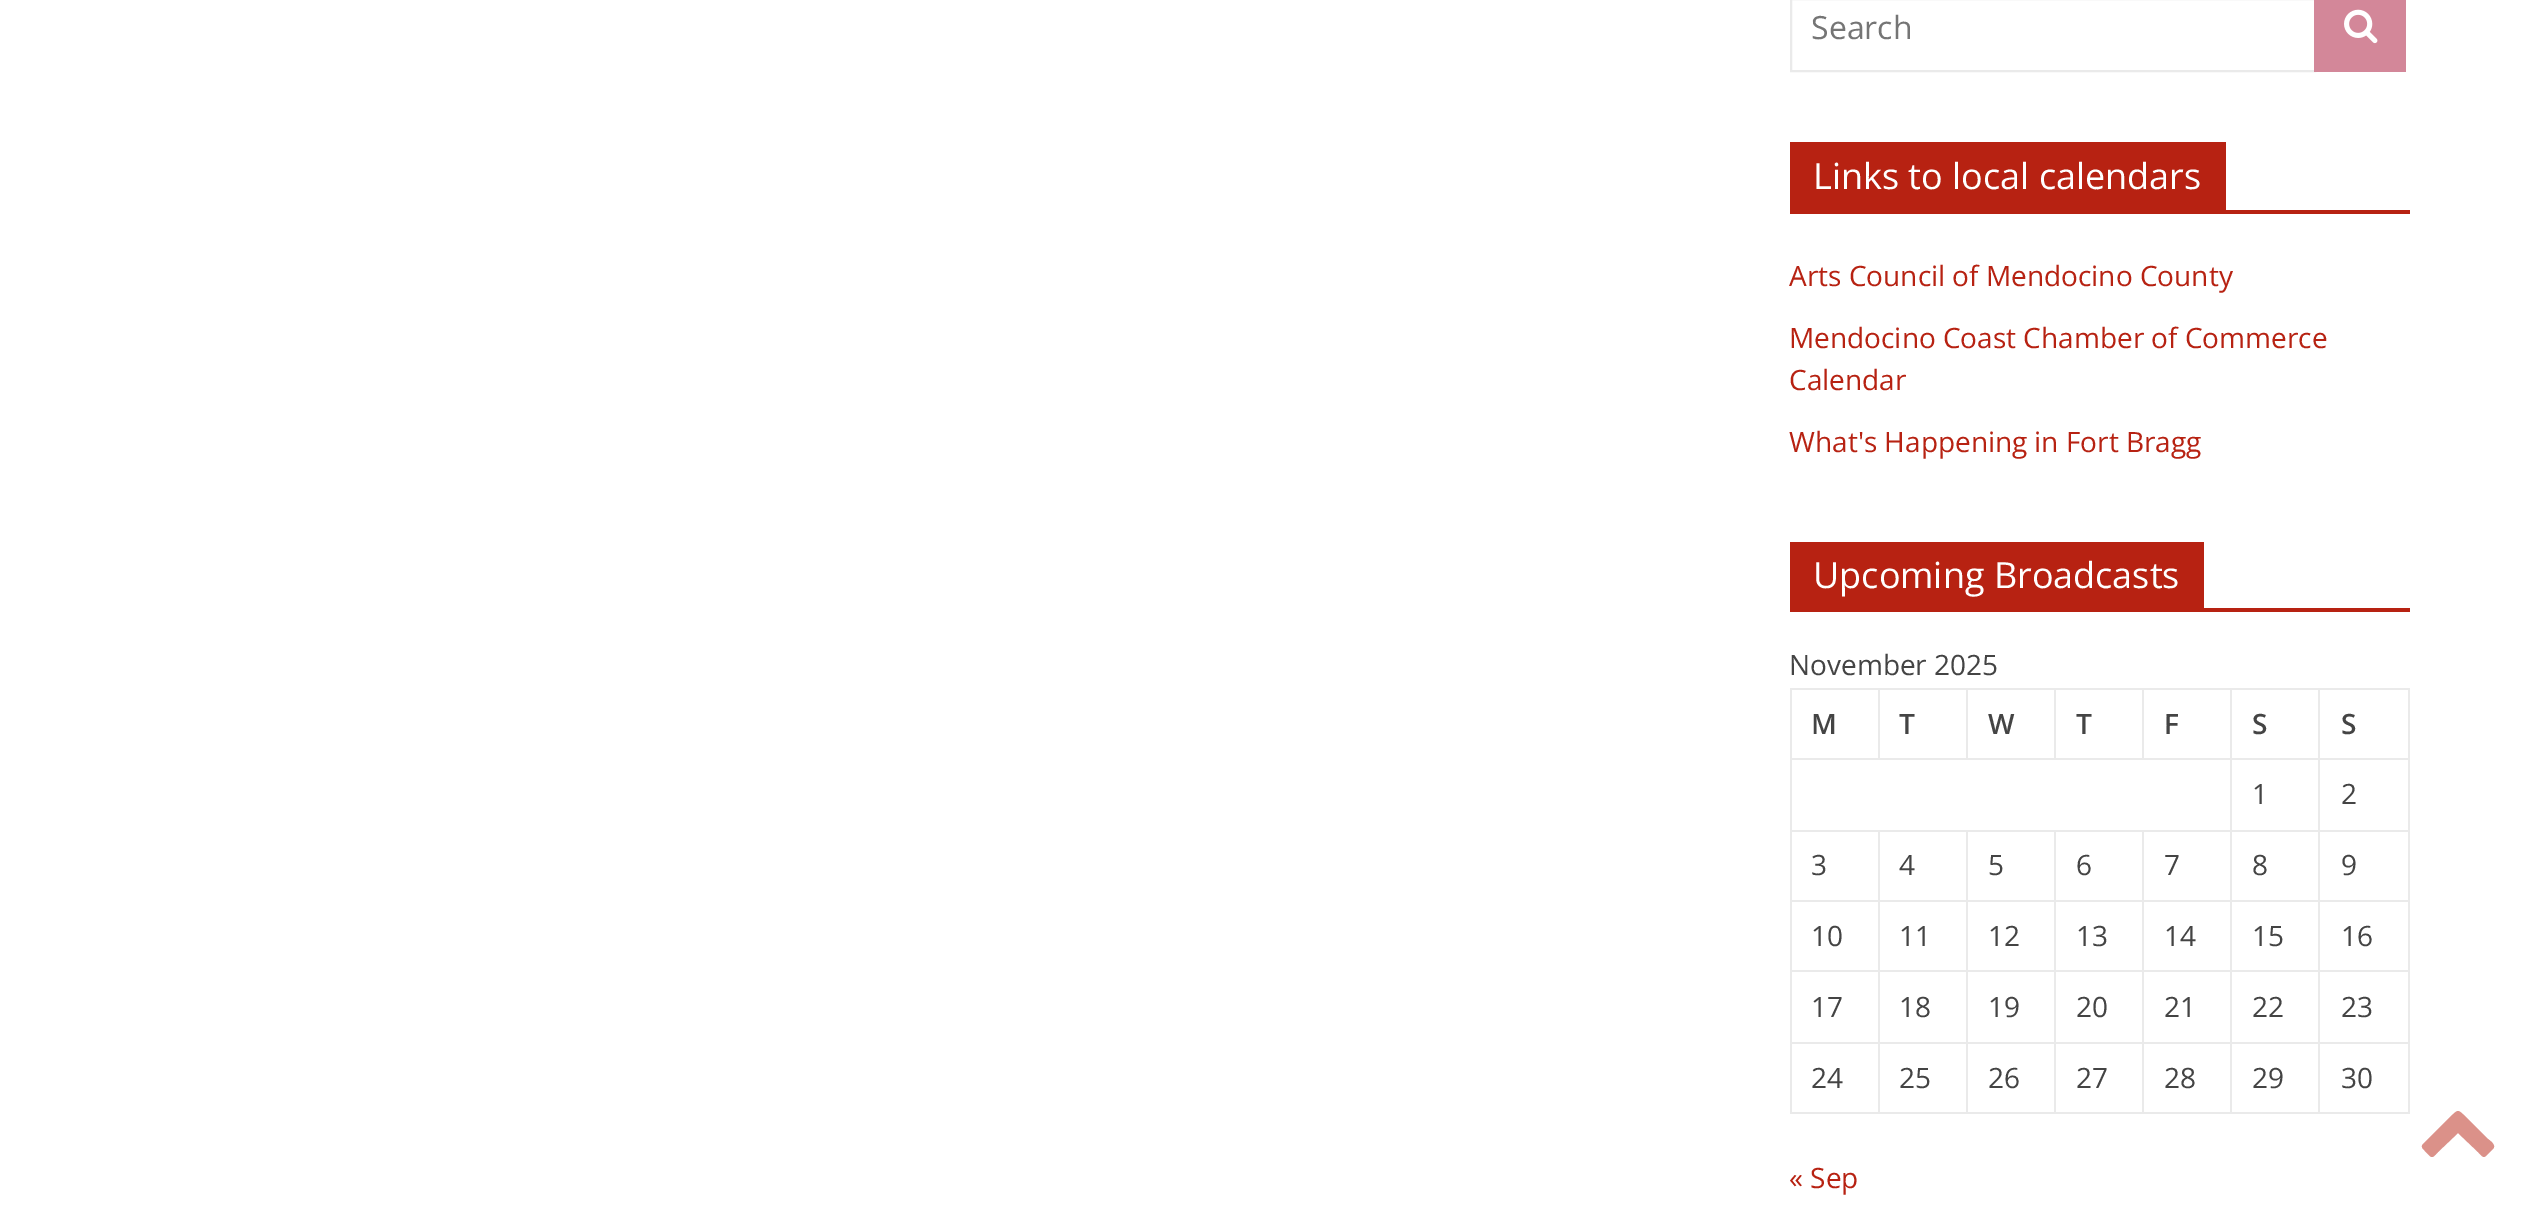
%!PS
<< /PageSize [2538 1213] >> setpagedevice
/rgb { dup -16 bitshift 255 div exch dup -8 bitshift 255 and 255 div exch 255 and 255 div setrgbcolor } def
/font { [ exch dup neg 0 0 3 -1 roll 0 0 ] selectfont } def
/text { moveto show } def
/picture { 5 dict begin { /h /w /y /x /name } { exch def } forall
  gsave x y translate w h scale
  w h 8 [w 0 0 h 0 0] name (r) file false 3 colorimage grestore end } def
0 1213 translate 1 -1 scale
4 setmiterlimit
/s1 { /OpenSans-Regular 32 font 16#757575 rgb } def
/s2 { /OpenSans-Regular 36 font 16#FFFFFF rgb } def
/s3 { /OpenSans-Regular 28 font 16#B72212 rgb } def
/s4 { /OpenSans-Regular 28 font 16#444444 rgb } def
/s5 { /OpenSans-SemiBold 28 font 16#444444 rgb } def
16#FFFFFF rgb
0 0 2538 1213 rectfill
16#EAEAEA rgb
2 setlinewidth
1791 -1 524 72 rectstroke
s1
(Search) 1811 39 text
16#D38799 rgb
2314 0 92 72 rectfill
(pic1.raw) 2344 9 34 35 picture
16#B72212 rgb
1790 210 620 4 rectfill
1790 142 436 68 rectfill
s2
(Links to local calendars) 1813 189 text
s3
(Arts Council of Mendocino County) 1789 286 text
(Mendocino Coast Chamber of Commerce) 1789 348 text
(Calendar) 1789 390 text
(What's Happening in Fort Bragg) 1789 452 text
1790 608 620 4 rectfill
1790 542 414 66 rectfill
s2
(Upcoming Broadcasts) 1813 588 text
s4
(November 2025) 1789 675 text
16#EAEAEA rgb
2318 688 92 2 rectfill
2318 758 92 2 rectfill
2318 830 92 2 rectfill
2318 900 92 2 rectfill
2318 970 92 2 rectfill
2318 1042 92 2 rectfill
2408 1042 2 72 rectfill
2318 1112 92 2 rectfill
2318 1042 2 72 rectfill
2230 1042 90 2 rectfill
2318 970 2 74 rectfill
2230 970 90 2 rectfill
2318 900 2 72 rectfill
2230 900 90 2 rectfill
2318 830 2 72 rectfill
2230 830 90 2 rectfill
2318 758 2 74 rectfill
2230 758 90 2 rectfill
2318 688 2 72 rectfill
2230 688 90 2 rectfill
2230 1112 90 2 rectfill
2230 1042 2 72 rectfill
2142 1042 90 2 rectfill
2230 970 2 74 rectfill
2142 970 90 2 rectfill
2230 900 2 72 rectfill
2142 900 90 2 rectfill
2230 830 2 72 rectfill
2142 830 90 2 rectfill
2230 758 2 74 rectfill
1790 758 442 2 rectfill
2230 688 2 72 rectfill
2142 688 90 2 rectfill
2142 688 2 72 rectfill
2054 688 90 2 rectfill
2054 688 2 72 rectfill
1966 688 90 2 rectfill
1966 688 2 72 rectfill
1878 688 90 2 rectfill
1878 688 2 72 rectfill
1790 688 90 2 rectfill
2142 1112 90 2 rectfill
2142 1042 2 72 rectfill
2054 1042 90 2 rectfill
2142 970 2 74 rectfill
2054 970 90 2 rectfill
2142 900 2 72 rectfill
2054 900 90 2 rectfill
2142 830 2 72 rectfill
2054 830 90 2 rectfill
2054 1112 90 2 rectfill
2054 1042 2 72 rectfill
1966 1042 90 2 rectfill
2054 970 2 74 rectfill
1966 970 90 2 rectfill
2054 900 2 72 rectfill
1966 900 90 2 rectfill
2054 830 2 72 rectfill
1966 830 90 2 rectfill
1966 1112 90 2 rectfill
1966 1042 2 72 rectfill
1878 1042 90 2 rectfill
1966 970 2 74 rectfill
1878 970 90 2 rectfill
1966 900 2 72 rectfill
1878 900 90 2 rectfill
1966 830 2 72 rectfill
1878 830 90 2 rectfill
1878 1112 90 2 rectfill
1878 1042 2 72 rectfill
1790 1042 90 2 rectfill
1878 970 2 74 rectfill
1790 970 90 2 rectfill
1878 900 2 72 rectfill
1790 900 90 2 rectfill
1878 830 2 72 rectfill
1790 830 90 2 rectfill
1790 1112 90 2 rectfill
1790 1042 2 72 rectfill
1790 970 2 74 rectfill
1790 900 2 72 rectfill
1790 830 2 72 rectfill
1790 758 2 74 rectfill
1790 688 2 72 rectfill
s5
(M) 1811 734 text
(T) 1899 734 text
(W) 1988 734 text
(T) 2076 734 text
(F) 2164 734 text
(S) 2252 734 text
16#EAEAEA rgb
2408 970 2 74 rectfill
2408 900 2 72 rectfill
2408 830 2 72 rectfill
2408 758 2 74 rectfill
2408 688 2 72 rectfill
s5
(S) 2341 734 text
s4
(1) 2252 804 text
(2) 2341 804 text
(3) 1811 875 text
(4) 1899 875 text
(5) 1988 875 text
(6) 2076 875 text
(7) 2164 875 text
(8) 2252 875 text
(9) 2341 875 text
(10) 1811 946 text
(11) 1899 946 text
(12) 1988 946 text
(13) 2076 946 text
(14) 2164 946 text
(15) 2252 946 text
(16) 2341 946 text
(17) 1811 1017 text
(18) 1899 1017 text
(19) 1988 1017 text
(20) 2076 1017 text
(21) 2164 1017 text
(22) 2252 1017 text
(23) 2341 1017 text
(24) 1811 1088 text
(25) 1899 1088 text
(26) 1988 1088 text
(27) 2076 1088 text
(28) 2164 1088 text
(29) 2252 1088 text
(30) 2341 1088 text
s3
(« Sep) 1789 1188 text
16#DB9189 rgb
2493 1149 moveto 2487 1155 lineto 2483 1159 2482 1156 2478 1152 curveto 2458 1133 lineto 2438 1152 lineto 2431 1160 2432 1158 2424 1150 curveto 2419 1145 2424 1144 2428 1139 curveto 2450 1117 lineto 2459 1109 2457 1109 2466 1117 curveto 2488 1139 lineto 2489 1140 2497 1145 2493 1149 curveto closepath fill
showpage
